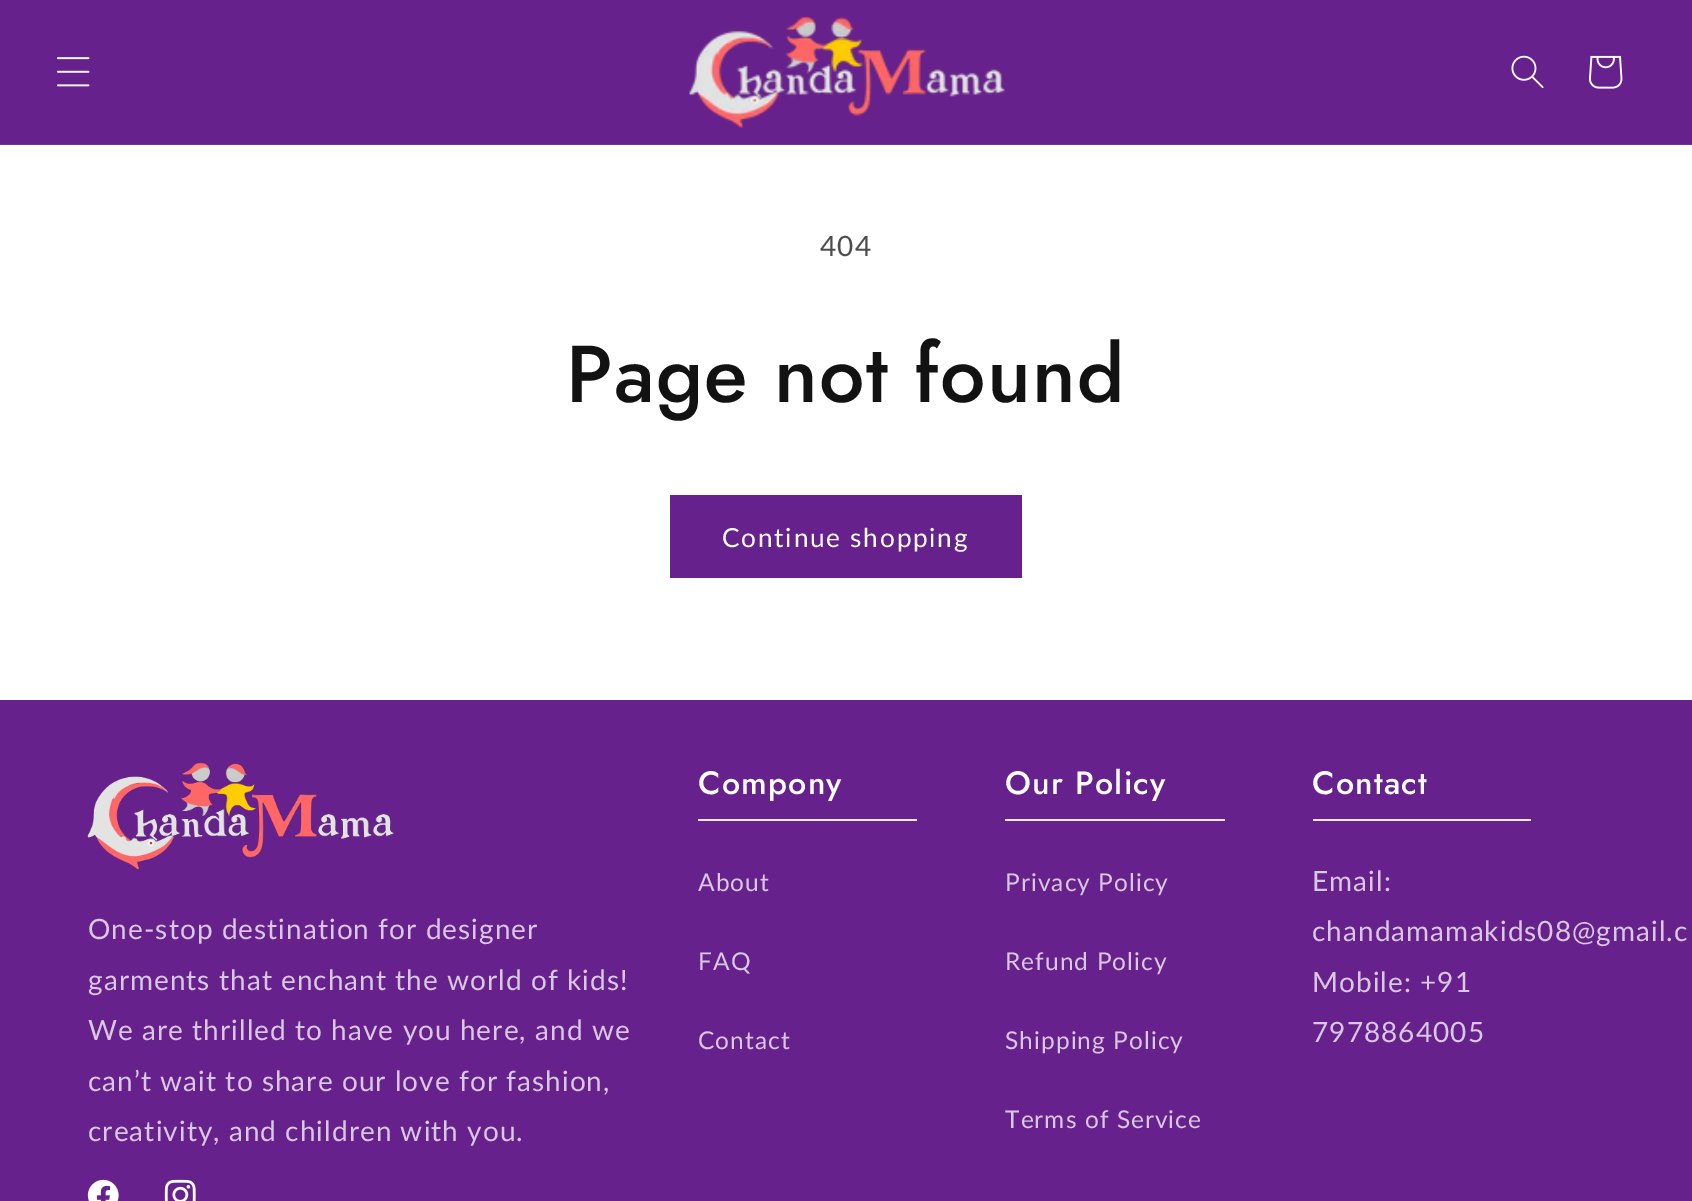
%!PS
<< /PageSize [1692 1201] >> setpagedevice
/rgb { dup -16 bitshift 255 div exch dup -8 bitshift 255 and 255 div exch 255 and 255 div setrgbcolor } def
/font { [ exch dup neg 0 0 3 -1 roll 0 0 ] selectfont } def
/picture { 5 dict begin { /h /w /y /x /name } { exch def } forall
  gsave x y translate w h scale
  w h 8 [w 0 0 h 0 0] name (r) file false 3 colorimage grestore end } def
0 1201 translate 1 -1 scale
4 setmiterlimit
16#FFFFFF rgb
0 0 1692 1201 rectfill
16#67218C rgb
0 0 1692 144 rectfill
16#733395 rgb
0 144 1692 1 rectfill
(pic1.raw) 57 57 33 30 picture
(pic2.raw) 689 16 316 112 picture
(pic3.raw) 1511 55 33 34 picture
(pic4.raw) 1589 55 34 34 picture
/Lato-Regular 28 font
16#4D4D4D rgb
820 256 moveto 1.05 0 (404) ashow
/Jost-Medium 80.5 font
16#121212 rgb
566 402 moveto 1.25 0 (Page not found) ashow
16#67218C rgb
670 495 352 83 rectfill
/Lato-Regular 26.25 font
16#FFFFFF rgb
722 547 moveto 1.75 0 (Continue shopping) ashow
16#67218C rgb
0 700 1692 501 rectfill
(pic5.raw) 87 762 307 108 picture
/Lato-Regular 28 font
16#D9C8E2 rgb
88 939 moveto 1.05 0 (One-stop destination for designer) ashow
88 990 moveto 1.05 0 (garments that enchant the world of kids!) ashow
88 1040 moveto 1.05 0 (We are thrilled to have you here, and we) ashow
88 1091 moveto 1.05 0 (can’t wait to share our love for fashion,) ashow
88 1141 moveto 1.05 0 (creativity, and children with you.) ashow
(pic6.raw) 87 1179 32 22 picture
(pic7.raw) 164 1179 32 22 picture
/Jost-Medium 32.25 font
16#FFFFFF rgb
698 794 moveto 1.25 0 (Compony) ashow
16#FFE8E7 rgb
698 819 219 2 rectfill
/Lato-Regular 24.5 font
16#D9C8E2 rgb
698 891 moveto 1.05 0 (About) ashow
698 970 moveto 1.05 0 (FAQ) ashow
698 1049 moveto 1.05 0 (Contact) ashow
/Jost-Medium 32.25 font
16#FFFFFF rgb
1005 794 moveto 1.25 0 (Our Policy) ashow
16#FFE8E7 rgb
1005 819 220 2 rectfill
/Lato-Regular 24.5 font
16#D9C8E2 rgb
1005 891 moveto 1.05 0 (Privacy Policy) ashow
1005 970 moveto 1.05 0 (Refund Policy) ashow
1005 1049 moveto 1.05 0 (Shipping Policy) ashow
1005 1128 moveto 1.05 0 (Terms of Service) ashow
/Jost-Medium 32.25 font
16#FFFFFF rgb
1312 794 moveto 1.25 0 (Contact) ashow
16#FFE8E7 rgb
1313 819 218 2 rectfill
/Lato-Regular 28 font
16#D9C8E2 rgb
1312 891 moveto 1.05 0 (Email:) ashow
1312 941 moveto 1.05 0 (chandamamakids08@gmail.c) ashow
1312 992 moveto 1.05 0 (Mobile: +91) ashow
1312 1042 moveto 1.05 0 (7978864005) ashow
showpage
